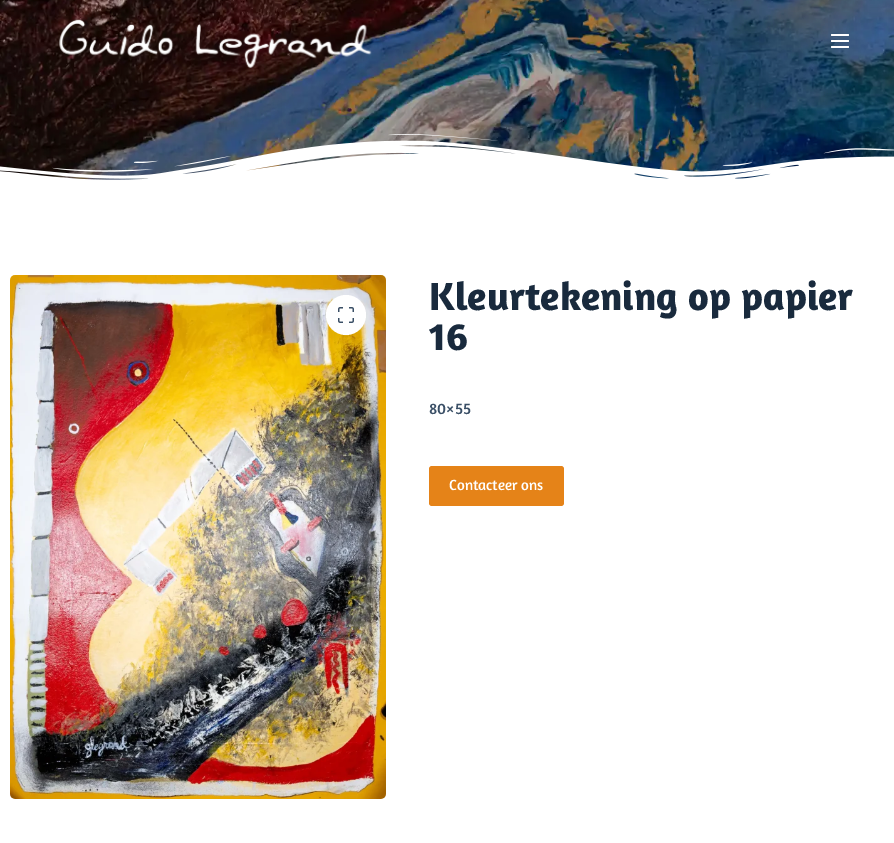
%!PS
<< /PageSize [894 843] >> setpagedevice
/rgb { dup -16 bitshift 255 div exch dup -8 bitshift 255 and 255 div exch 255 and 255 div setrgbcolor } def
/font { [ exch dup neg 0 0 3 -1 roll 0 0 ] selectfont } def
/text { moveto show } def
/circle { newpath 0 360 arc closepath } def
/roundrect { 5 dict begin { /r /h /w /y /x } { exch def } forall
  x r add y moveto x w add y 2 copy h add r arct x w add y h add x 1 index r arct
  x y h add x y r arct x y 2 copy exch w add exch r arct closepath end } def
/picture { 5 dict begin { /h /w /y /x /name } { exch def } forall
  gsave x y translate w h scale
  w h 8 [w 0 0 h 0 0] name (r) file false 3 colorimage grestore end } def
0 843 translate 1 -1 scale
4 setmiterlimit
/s1 { /Amaranth-Bold 40 font 16#192A3D rgb } def
/s2 { /Amaranth-Regular 16 font 16#3A4F66 rgb } def
/s3 { /Amaranth-Regular 15 font 16#FFFFFF rgb } def
16#FFFFFF rgb
0 0 894 843 rectfill
(pic2.raw) 0 0 894 180 picture
(pic1.raw) 59 19 313 49 picture
831 34 18 2 1 roundrect fill
831 40 18 2 1 roundrect fill
831 46 18 2 1 roundrect fill
(pic3.raw) 0 134 894 51 picture
(pic4.raw) 10 275 376 524 picture
346 315 20 circle fill
(pic5.raw) 338 307 16 16 picture
s1
(Kleurtekening op papier) 429 310 text
(16) 429 350 text
s2
(80×55) 429 414 text
16#E58318 rgb
429 466 135 40 3 roundrect fill
s3
(Contacteer ons) 449 490 text
showpage
